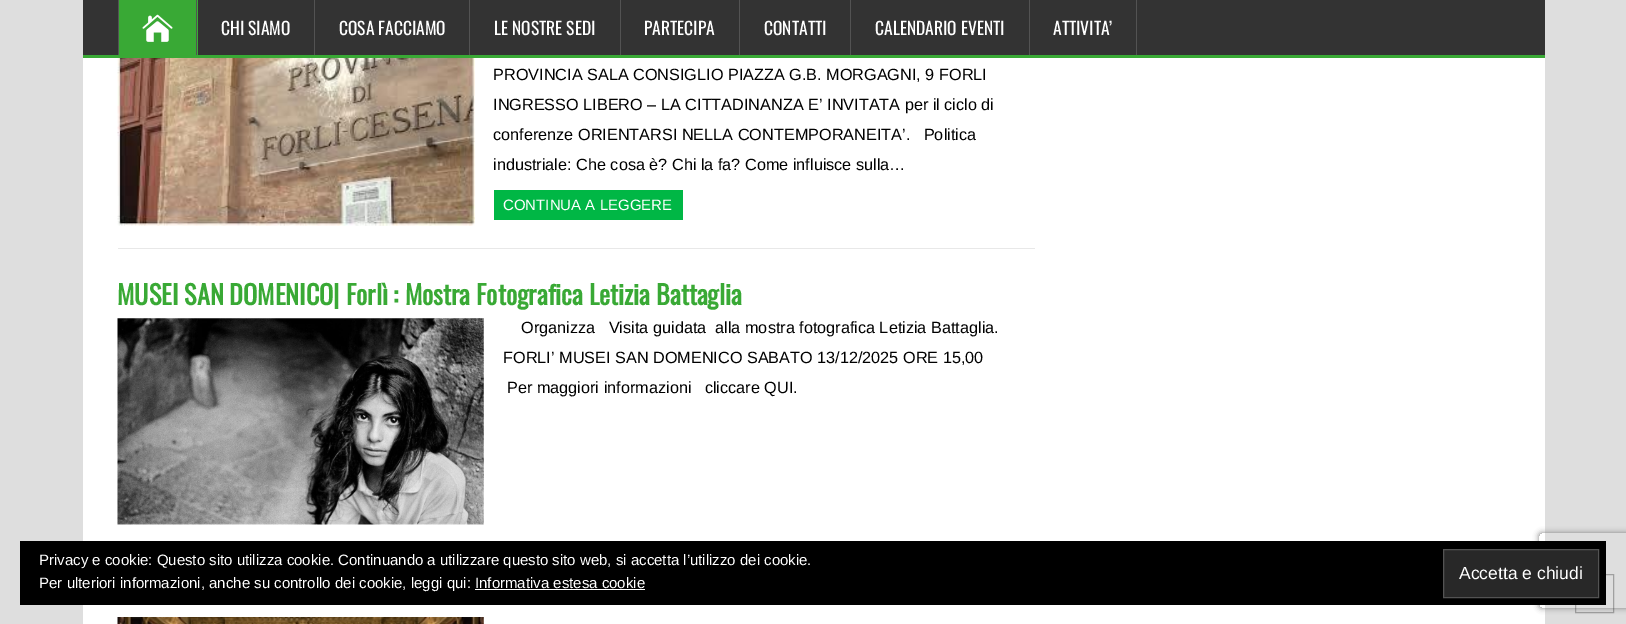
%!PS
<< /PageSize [1626 624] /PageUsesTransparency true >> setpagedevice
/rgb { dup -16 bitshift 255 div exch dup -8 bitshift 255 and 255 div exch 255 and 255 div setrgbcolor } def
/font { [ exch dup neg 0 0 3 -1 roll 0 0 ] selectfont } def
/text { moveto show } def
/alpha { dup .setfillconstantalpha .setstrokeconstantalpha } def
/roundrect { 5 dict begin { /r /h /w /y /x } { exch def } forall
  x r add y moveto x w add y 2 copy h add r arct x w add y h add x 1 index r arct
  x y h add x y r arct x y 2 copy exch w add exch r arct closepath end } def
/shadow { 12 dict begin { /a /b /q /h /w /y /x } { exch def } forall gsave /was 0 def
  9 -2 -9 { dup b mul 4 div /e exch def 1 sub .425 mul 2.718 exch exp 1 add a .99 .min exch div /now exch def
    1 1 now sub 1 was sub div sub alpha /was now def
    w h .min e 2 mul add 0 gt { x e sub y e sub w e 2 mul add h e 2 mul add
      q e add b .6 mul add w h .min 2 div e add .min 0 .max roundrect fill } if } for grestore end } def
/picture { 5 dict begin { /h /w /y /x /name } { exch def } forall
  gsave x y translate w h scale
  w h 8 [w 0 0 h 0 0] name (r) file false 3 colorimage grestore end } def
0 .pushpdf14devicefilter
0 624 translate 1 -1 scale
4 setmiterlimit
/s1 { /Oswald-Regular 17.5 font 16#FFFFFF rgb } def
/s2 { /LiberationSans-Regular 16.25 font 16#000000 rgb } def
/s3 { /LiberationSans-Regular 15 font 16#FFFFFF rgb } def
/s4 { /Oswald-Bold 26.25 font 16#39A935 rgb } def
/s5 { /LiberationSans-Regular 17.5 font 16#FFFFFF rgb } def
16#DEDEDE rgb
0 0 1626 624 rectfill
16#FFFFFF rgb
83 58 1462 566 rectfill
16#333333 rgb
83 0 1462 55 rectfill
16#39A935 rgb
83 55 1462 3 rectfill
119 0 79 55 rectfill
16#535353 rgb
196 0 1 55 rectfill
118 0 1 55 rectfill
(pic1.raw) 142 14 31 28 picture
314 0 1 55 rectfill
s1
(CHI SIAMO) 221 35 text
16#535353 rgb
469 0 1 55 rectfill
s1
(COSA FACCIAMO) 339 35 text
16#535353 rgb
620 0 1 55 rectfill
s1
(LE NOSTRE SEDI) 494 35 text
16#535353 rgb
739 0 1 55 rectfill
s1
(PARTECIPA) 644 35 text
16#535353 rgb
850 0 1 55 rectfill
s1
(CONTATTI) 764 35 text
16#535353 rgb
1029 0 1 55 rectfill
s1
(CALENDARIO EVENTI) 875 35 text
16#535353 rgb
1136 0 1 55 rectfill
s1
(ATTIVITA’) 1053 35 text
16#E8E8E8 rgb
118 248 917 1 rectfill
(pic2.raw) 117 58 358 168 picture
s2
(PROVINCIA SALA CONSIGLIO PIAZZA G.B. MORGAGNI, 9 FORLI) 493 80 text
(INGRESSO LIBERO – LA CITTADINANZA E’ INVITATA per il ciclo di) 493 110 text
(conferenze ORIENTARSI NELLA CONTEMPORANEITA’.   Politica) 493 140 text
(industriale: Che cosa è? Chi la fa? Come influisce sulla…) 493 170 text
16#00B745 rgb
494 190 189 30 rectfill
s3
(CONTINUA A LEGGERE) 503 210 text
s4
(MUSEI SAN DOMENICO| Forlì : Mostra Fotografica Letizia Battaglia) 117 305 text
(pic3.raw) 117 318 367 207 picture
s2
(Organizza   Visita guidata  alla mostra fotografica Letizia Battaglia.) 521 333 text
(FORLI’ MUSEI SAN DOMENICO SABATO 13/12/2025 ORE 15,00) 503 363 text
(Per maggiori informazioni   cliccare QUI.) 507 393 text
(pic4.raw) 117 617 367 7 picture
gsave
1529 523 moveto 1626 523 lineto 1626 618 lineto 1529 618 lineto closepath 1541.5 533 moveto 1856.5 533 lineto 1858 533 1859 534 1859 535.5 curveto 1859 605.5 lineto 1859 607 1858 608 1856.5 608 curveto 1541.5 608 lineto 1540 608 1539 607 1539 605.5 curveto 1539 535.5 lineto 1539 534 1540 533 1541.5 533 curveto closepath eoclip newpath
16#808080 rgb
1539 533 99 75 2.5 3 1 shadow
grestore
0.3 alpha
16#111111 rgb
1575.5 574.5 38 38 rectstroke
1 alpha
16#000000 rgb
20 541 1586 64 rectfill
s3
(Privacy e cookie: Questo sito utilizza cookie. Continuando a utilizzare questo sito web, si accetta l’utilizzo dei cookie.) 39 565 text
16#282828 rgb
1443.5 549.5 moveto 1598.5 549.5 lineto 1598.5 597.5 lineto 1443.5 597.5 lineto closepath gsave fill grestore
16#535353 rgb
stroke
s5
(Accetta e chiudi) 1459 579 text
s3
(Per ulteriori informazioni, anche su controllo dei cookie, leggi qui: Informativa estesa cookie) 39 588 text
475 589 170 1 rectfill
.poppdf14devicefilter showpage
